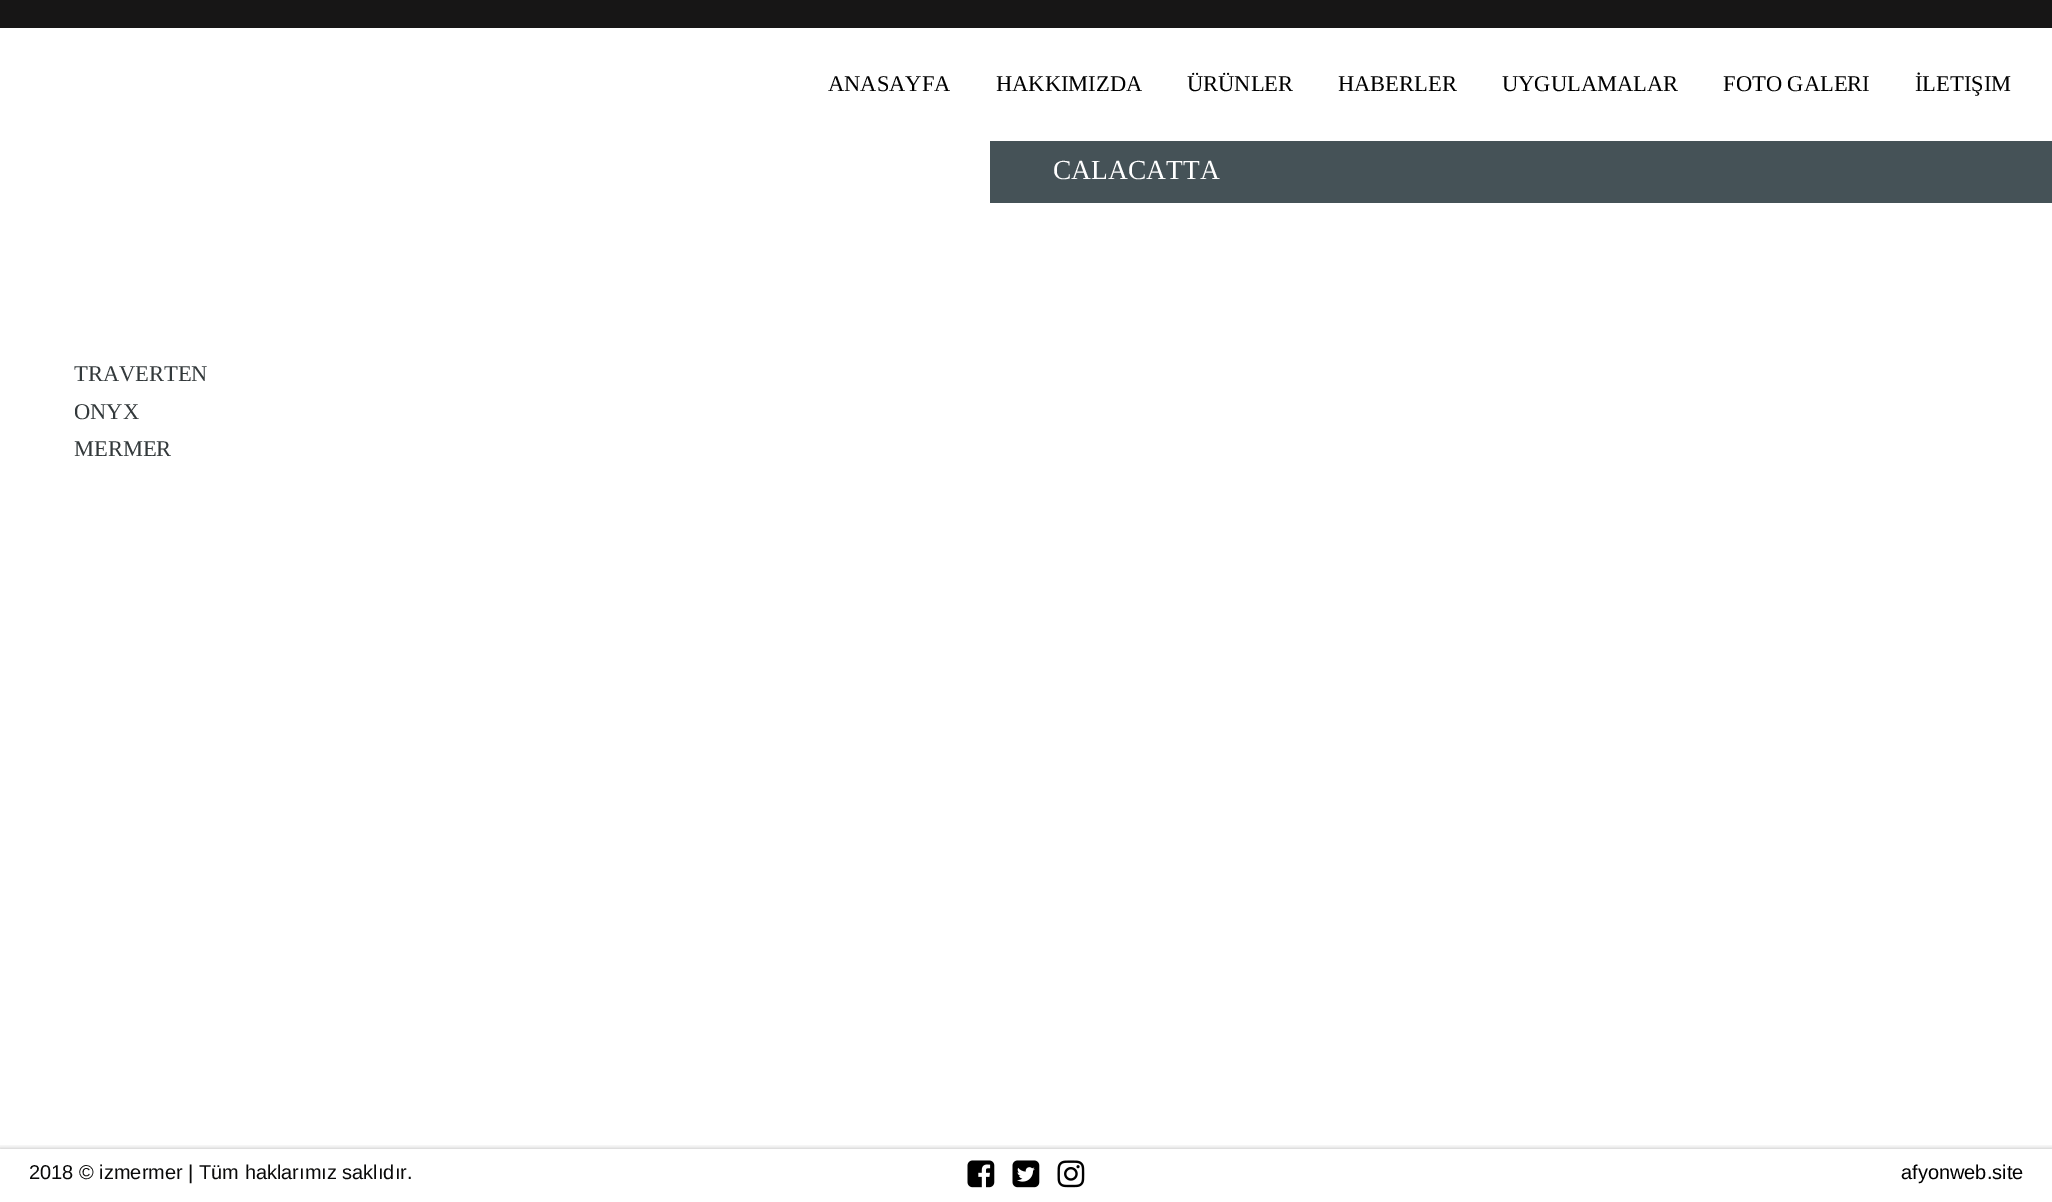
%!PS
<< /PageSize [2052 1202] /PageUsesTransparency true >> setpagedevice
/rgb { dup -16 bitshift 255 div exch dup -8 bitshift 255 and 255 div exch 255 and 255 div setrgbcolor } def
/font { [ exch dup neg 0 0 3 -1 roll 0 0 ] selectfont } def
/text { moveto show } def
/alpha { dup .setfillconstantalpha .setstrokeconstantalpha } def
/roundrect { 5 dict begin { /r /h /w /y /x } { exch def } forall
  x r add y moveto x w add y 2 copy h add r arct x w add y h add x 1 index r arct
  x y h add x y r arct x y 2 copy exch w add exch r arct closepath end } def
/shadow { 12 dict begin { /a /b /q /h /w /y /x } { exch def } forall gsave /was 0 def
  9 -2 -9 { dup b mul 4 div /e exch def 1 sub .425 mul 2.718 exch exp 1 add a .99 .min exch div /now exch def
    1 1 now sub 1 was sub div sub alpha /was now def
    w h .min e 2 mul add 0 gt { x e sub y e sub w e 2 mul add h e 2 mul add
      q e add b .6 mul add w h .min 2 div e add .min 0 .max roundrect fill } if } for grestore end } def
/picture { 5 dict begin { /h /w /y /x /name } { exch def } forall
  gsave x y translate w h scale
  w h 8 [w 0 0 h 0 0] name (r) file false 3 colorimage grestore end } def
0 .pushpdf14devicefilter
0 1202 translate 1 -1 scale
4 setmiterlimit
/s1 { /LiberationSerif-Regular 22.5 font 16#000000 rgb } def
/s2 { /LiberationSerif-Regular 27.5 font 16#FFFFFF rgb } def
/s3 { /LiberationSerif-Regular 22.5 font 16#33393B rgb } def
/s4 { /LiberationSans-Regular 20 font 16#0A0A09 rgb } def
/s5 { /LiberationSans-Regular 20 font 16#000000 rgb } def
16#FFFFFF rgb
0 0 2052 1202 rectfill
16#171616 rgb
0 0 2052 28 rectfill
s1
(ANASAYFA) 828 91 text
(HAKKIMIZDA) 996 91 text
(ÜRÜNLER) 1187 91 text
(HABERLER) 1338 91 text
(UYGULAMALAR) 1502 91 text
(FOTO GALERI) 1723 91 text
(İLETIŞIM) 1915 91 text
16#455257 rgb
990 141 1062 62 rectfill
s2
(CALACATTA) 1053 179 text
s3
(TRAVERTEN) 74 381 text
(ONYX) 74 419 text
(MERMER) 74 456 text
gsave
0 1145 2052 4 rectclip
16#000000 rgb
0 1149 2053 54 0 3 0.3 shadow
grestore
s4
(2018 © izmermer | Tüm haklarımız saklıdır.) 29 1179 text
(pic1.raw) 967 1160 28 28 picture
(pic2.raw) 1012 1160 28 28 picture
(pic3.raw) 1057 1160 28 28 picture
s5
(afyonweb.site) 1901 1179 text
.poppdf14devicefilter showpage
